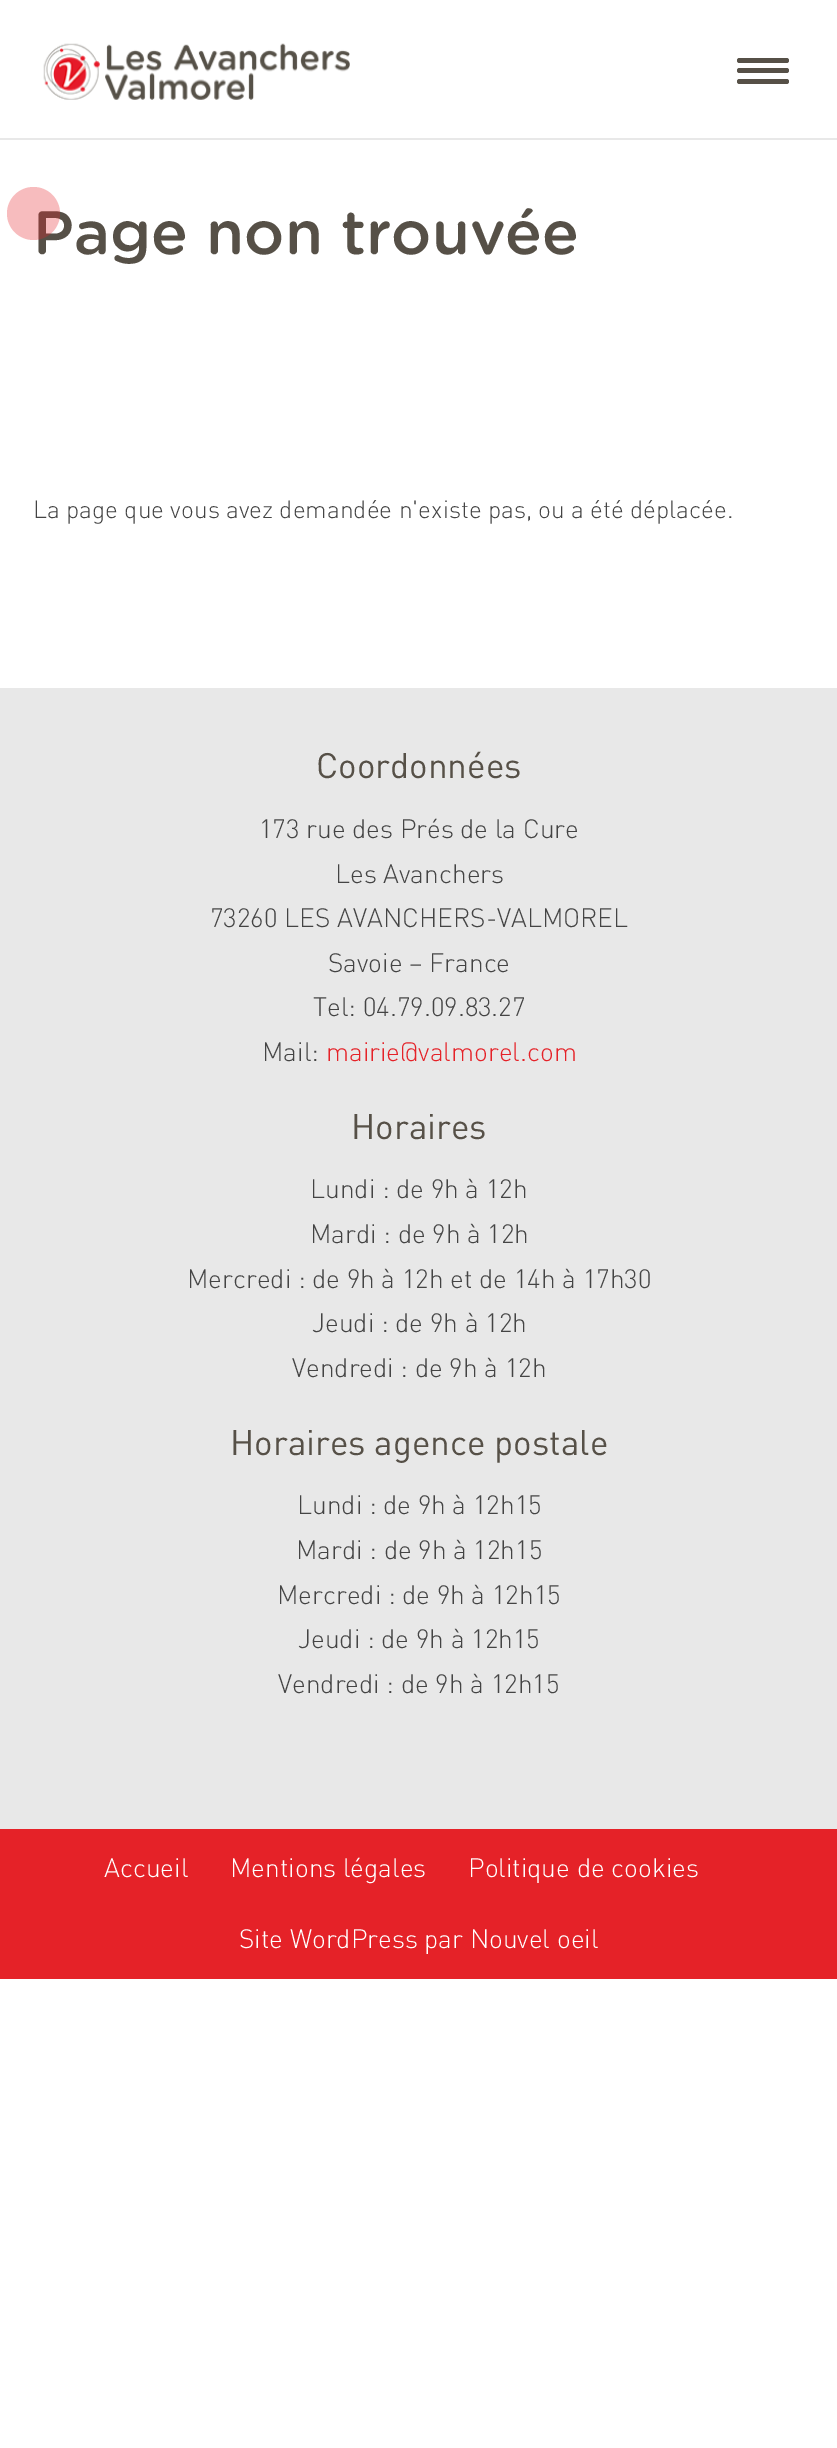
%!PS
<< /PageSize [837 2448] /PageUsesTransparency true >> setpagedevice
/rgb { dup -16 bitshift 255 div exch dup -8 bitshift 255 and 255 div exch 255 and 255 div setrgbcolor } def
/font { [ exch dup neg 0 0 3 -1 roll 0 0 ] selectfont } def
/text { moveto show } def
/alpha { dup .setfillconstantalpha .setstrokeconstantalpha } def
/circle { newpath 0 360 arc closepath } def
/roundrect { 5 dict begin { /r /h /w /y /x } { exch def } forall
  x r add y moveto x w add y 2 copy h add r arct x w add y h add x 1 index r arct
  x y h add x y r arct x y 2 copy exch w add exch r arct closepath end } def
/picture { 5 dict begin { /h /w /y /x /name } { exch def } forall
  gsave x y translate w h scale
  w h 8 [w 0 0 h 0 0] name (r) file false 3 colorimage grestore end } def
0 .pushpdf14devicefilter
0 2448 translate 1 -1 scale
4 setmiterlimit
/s1 { /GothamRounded-Medium 61.25 font 16#565047 rgb } def
/s2 { /DIN-Light 24.5 font 16#444444 rgb } def
/s3 { /DIN-Regular 35 font 16#565047 rgb } def
/s4 { /DIN-Light 26.25 font 16#444444 rgb } def
/s5 { /DIN-Light 26.25 font 16#E52228 rgb } def
/s6 { /DIN-Light 26.25 font 16#FFFFFF rgb } def
16#FFFFFF rgb
0 0 837 2448 rectfill
16#E8E8E8 rgb
0 138 837 2 rectfill
(pic1.raw) 43 43 307 57 picture
16#565047 rgb
737 68 52 5 2.5 roundrect fill
737 58 52 5 2.5 roundrect fill
737 79 52 5 2.5 roundrect fill
s1
(Page non trouvée) 33 254 text
0.3 alpha
16#E52228 rgb
33.5 213.5 26.5 circle fill
1 alpha
s2
(La page que vous avez demandée n'existe pas, ou a été déplacée.) 33 518 text
16#E8E8E8 rgb
0 688 837 1141 rectfill
s3
(Coordonnées) 316 778 text
s4
(173 rue des Prés de la Cure) 259 838 text
(Les Avanchers) 335 883 text
(73260 LES AVANCHERS-VALMOREL) 210 927 text
(Savoie – France) 328 972 text
(Tel: 04.79.09.83.27) 313 1016 text
(Mail:) 262 1061 text
s5
(mairie@valmorel.com) 326 1061 text
s3
(Horaires) 351 1139 text
s4
(Lundi : de 9h à 12h) 310 1198 text
(Mardi : de 9h à 12h) 310 1243 text
(Mercredi : de 9h à 12h et de 14h à 17h30) 187 1288 text
(Jeudi : de 9h à 12h) 312 1332 text
(Vendredi : de 9h à 12h) 292 1377 text
s3
(Horaires agence postale) 230 1455 text
s4
(Lundi : de 9h à 12h15) 297 1514 text
(Mardi : de 9h à 12h15) 296 1559 text
(Mercredi : de 9h à 12h15) 277 1604 text
(Jeudi : de 9h à 12h15) 298 1648 text
(Vendredi : de 9h à 12h15) 278 1693 text
16#E52228 rgb
0 1829 837 150 rectfill
s6
(Accueil) 104 1877 text
(Mentions légales) 230 1877 text
(Politique de cookies) 468 1877 text
(Site WordPress par Nouvel oeil) 239 1948 text
.poppdf14devicefilter showpage
